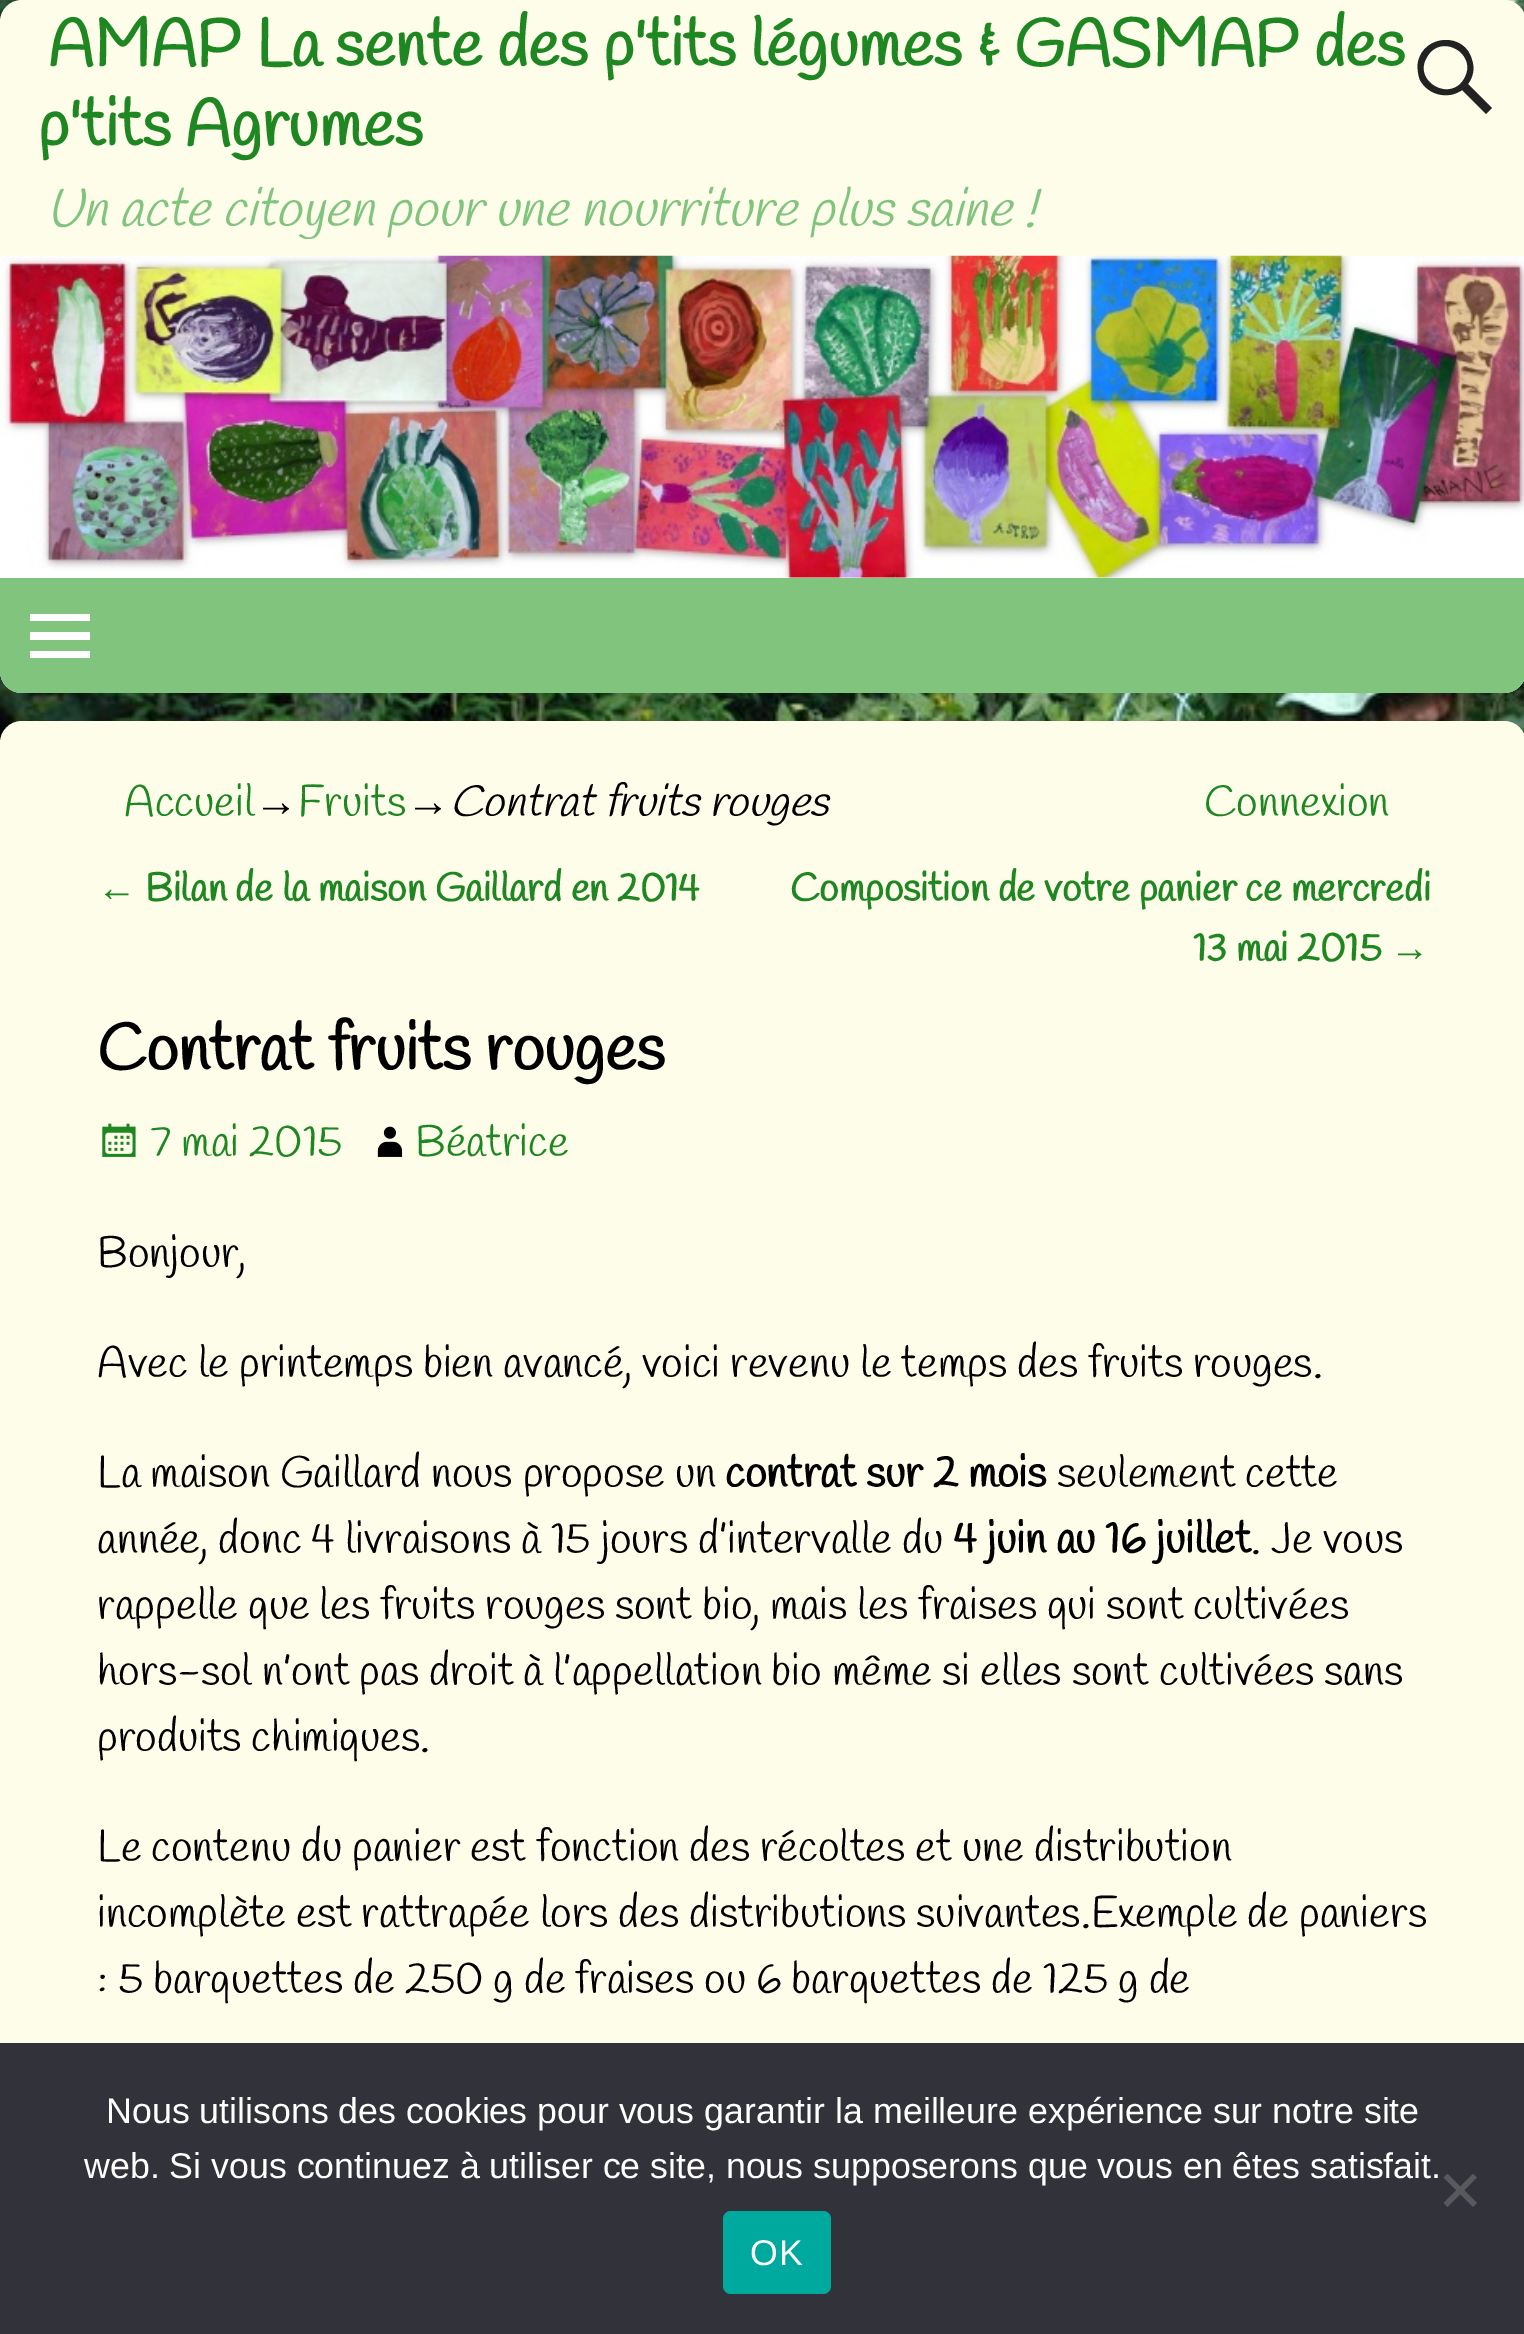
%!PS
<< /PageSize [1524 2334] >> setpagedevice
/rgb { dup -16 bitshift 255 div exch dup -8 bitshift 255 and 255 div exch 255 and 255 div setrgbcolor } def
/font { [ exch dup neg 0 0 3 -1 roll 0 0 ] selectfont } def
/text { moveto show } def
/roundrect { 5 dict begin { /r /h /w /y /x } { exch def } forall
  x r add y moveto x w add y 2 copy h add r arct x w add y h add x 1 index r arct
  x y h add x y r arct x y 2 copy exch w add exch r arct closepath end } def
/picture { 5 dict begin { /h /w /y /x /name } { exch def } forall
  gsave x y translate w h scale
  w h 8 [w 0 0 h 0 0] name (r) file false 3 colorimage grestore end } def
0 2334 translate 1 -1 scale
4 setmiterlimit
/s1 { /Handlee-Bold 66 font 16#1E8721 rgb } def
/s2 { /Handlee-Italic 52.75 font 16#80C47E rgb } def
/s3 { /Handlee-Regular 44 font 16#1E8721 rgb } def
/s4 { /LiberationSerif-Regular 44 font 16#000000 rgb } def
/s5 { /Handlee-Italic 44 font 16#000000 rgb } def
/s6 { /LiberationSerif-Regular 39.6 font 16#1E8721 rgb } def
/s7 { /Handlee-Bold 39.6 font 16#1E8721 rgb } def
/s8 { /Handlee-Bold 66 font 16#000000 rgb } def
/s9 { /Handlee-Regular 44 font 16#000000 rgb } def
/s10 { /Handlee-Bold 44 font 16#000000 rgb } def
/s11 { /LiberationSans-Regular 35.75 font 16#FFFFFF rgb } def
16#FFFFFF rgb
0 0 1524 2334 rectfill
(pic1.raw) 0 0 1524 743 picture
16#FEFDEA rgb
0 0 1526 693 22 roundrect fill
s1
(AMAP La sente des p'tits légumes & GASMAP des) 48 66 text
(p'tits Agrumes) 38 146 text
16#222222 rgb
1492 108 moveto 1486 114 lineto 1462 90 lineto 1448 100 1428 95 1420 80 curveto 1418 75 1417 68 1418 62 curveto 1424 34 1465 32 1472 60 curveto 1475 69 1473 77 1468 84 curveto closepath 1427 57 moveto 1412 81 1450 103 1464 79 curveto 1479 54 1441 32 1427 57 curveto closepath fill
s2
(Un acte citoyen pour une nourriture plus saine !) 46 226 text
(pic2.raw) 0 255 1524 323 picture
0 578 moveto 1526 578 lineto 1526 671 lineto 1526 683 1516 693 1504 693 curveto 22 693 lineto 10 693 0 683 0 671 curveto closepath fill
16#FFFFFF rgb
30 658 moveto 30 651 lineto 90 651 lineto 90 658 lineto closepath 30 614 moveto 90 614 lineto 90 621 lineto 30 621 lineto closepath 30 640 moveto 30 632 lineto 90 632 lineto 90 640 lineto closepath fill
16#FEFDEA rgb
0 721 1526 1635 22 roundrect fill
s3
(Accueil) 124 816 text
s4
(→) 254 816 text
s3
(Fruits) 298 816 text
s4
(→) 406 816 text
s5
(Contrat fruits rouges) 450 816 text
s3
(Connexion) 1204 816 text
s6
(←) 97 901 text
s7
(Bilan de la maison Gaillard en 2014) 145 901 text
(Composition de votre panier ce mercredi) 790 901 text
(13 mai 2015) 1193 961 text
s6
(→) 1390 961 text
s8
(Contrat fruits rouges) 97 1070 text
(pic3.raw) 102 1123 34 34 picture
s3
(7 mai 2015) 150 1156 text
(pic4.raw) 377 1126 26 31 picture
(Béatrice) 415 1156 text
s9
(Bonjour,) 97 1267 text
(Avec le printemps bien avancé, voici revenu le temps des fruits rouges.) 97 1377 text
(La maison Gaillard nous propose un) 97 1487 text
s10
(contrat sur 2 mois) 725 1487 text
s9
(seulement cette) 1057 1487 text
(année, donc 4 livraisons à 15 jours d’intervalle du) 97 1553 text
s10
(4 juin au 16 juillet) 953 1553 text
s9
(. Je vous) 1251 1553 text
(rappelle que les fruits rouges sont bio, mais les fraises qui sont cultivées) 97 1619 text
(hors-sol n’ont pas droit à l’appellation bio même si elles sont cultivées sans) 97 1685 text
(produits chimiques.) 97 1751 text
(Le contenu du panier est fonction des récoltes et une distribution) 97 1861 text
(incomplète est rattrapée lors des distributions suivantes.Exemple de paniers) 97 1927 text
(: 5 barquettes de 250 g de fraises ou 6 barquettes de 125 g de) 97 1993 text
16#32323A rgb
0 2043 1524 291 rectfill
s11
(Nous utilisons des cookies pour vous garantir la meilleure expérience sur notre site) 106 2123 text
(web. Si vous continuez à utiliser ce site, nous supposerons que vous en êtes satisfait.) 84 2178 text
16#59595D rgb
1473 2174 moveto 1477 2177.5 lineto 1447.5 2207 lineto 1443.5 2203 lineto closepath fill
1443.5 2177.5 moveto 1447.5 2174 lineto 1477 2203 lineto 1473 2207 lineto closepath fill
16#00A99D rgb
723 2211 108 83 8 roundrect fill
16#FFFFFF rgb
750 2265 moveto 1 0 (OK) ashow
showpage
